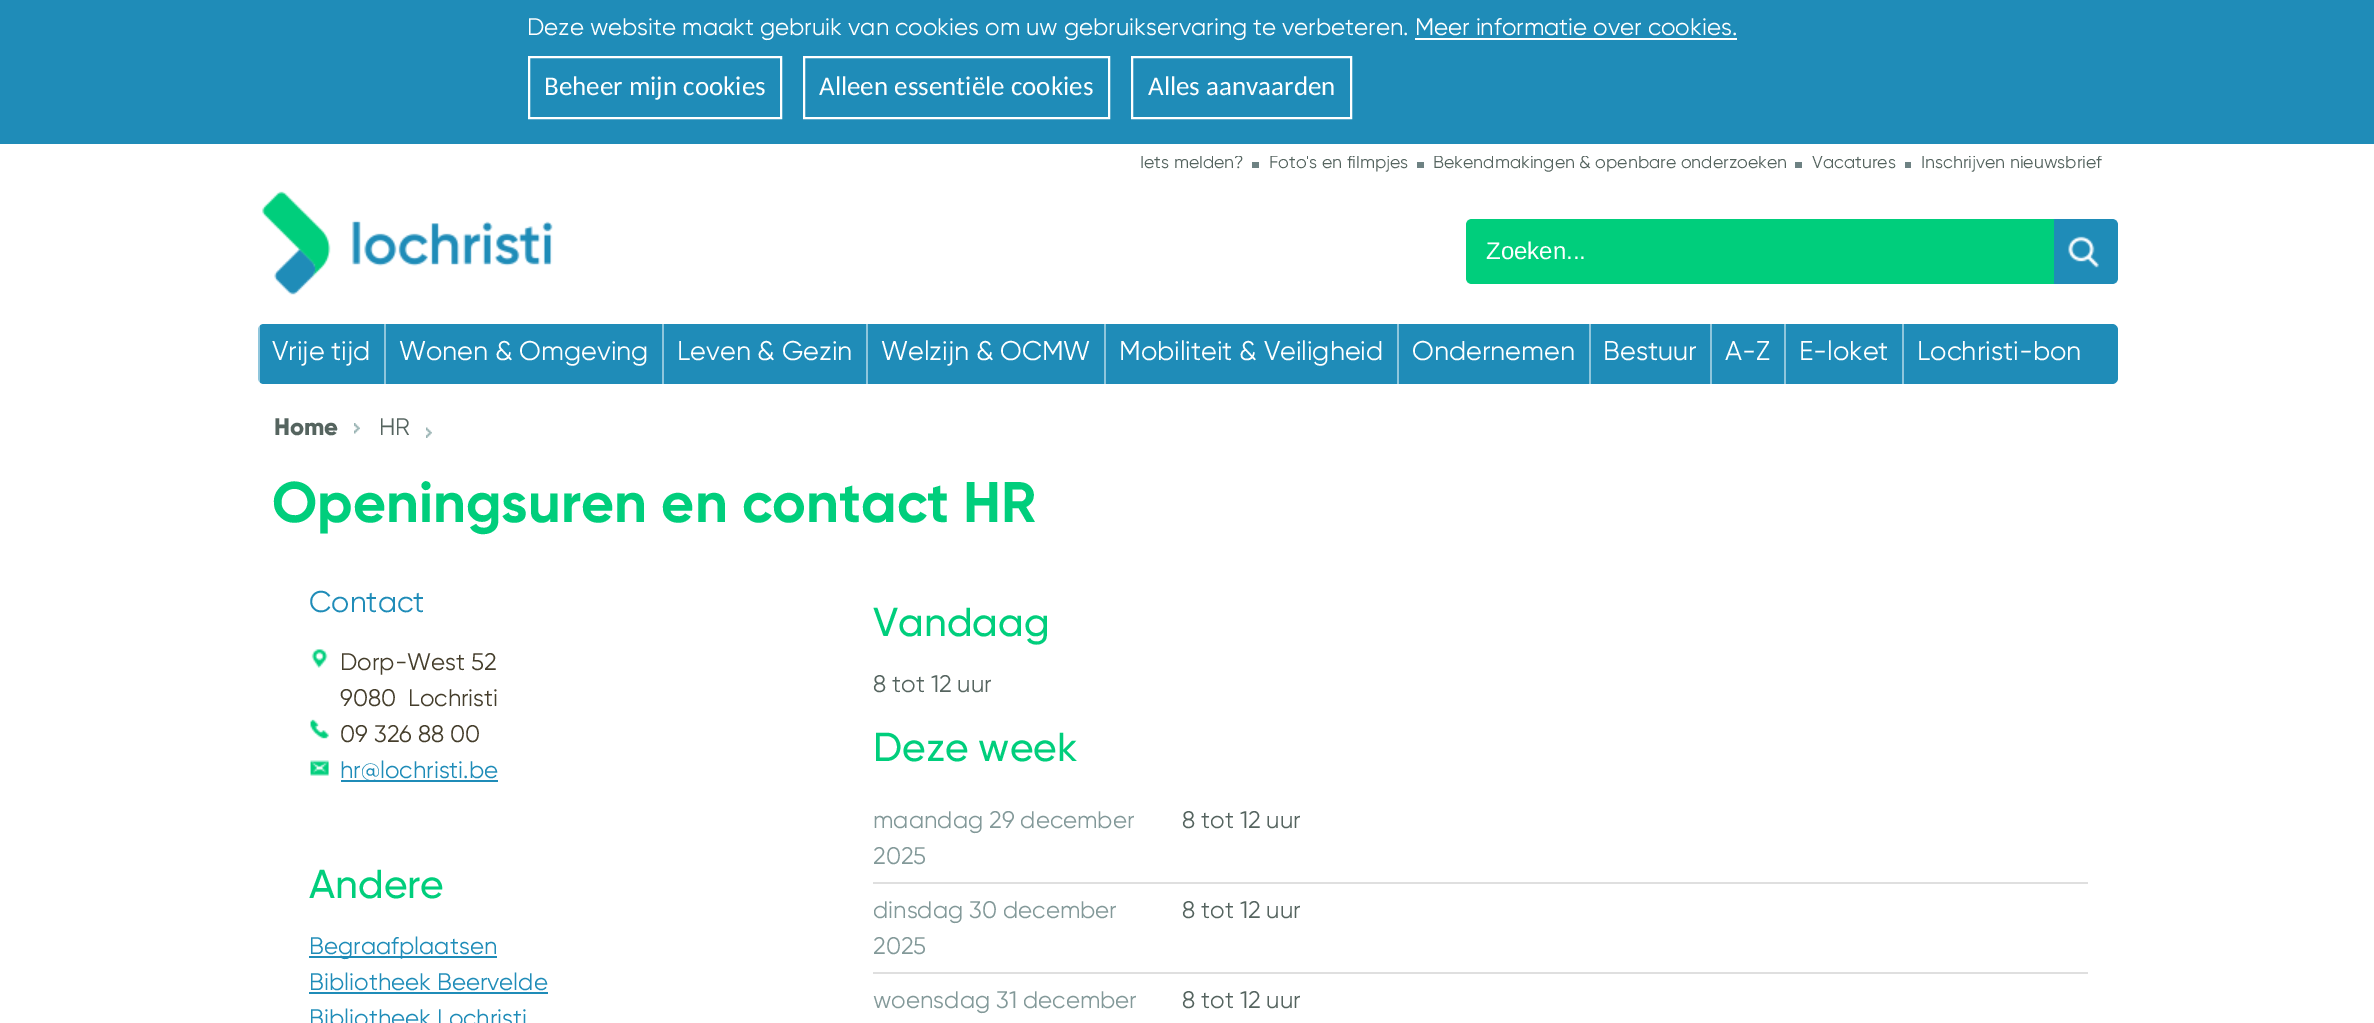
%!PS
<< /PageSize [2374 1023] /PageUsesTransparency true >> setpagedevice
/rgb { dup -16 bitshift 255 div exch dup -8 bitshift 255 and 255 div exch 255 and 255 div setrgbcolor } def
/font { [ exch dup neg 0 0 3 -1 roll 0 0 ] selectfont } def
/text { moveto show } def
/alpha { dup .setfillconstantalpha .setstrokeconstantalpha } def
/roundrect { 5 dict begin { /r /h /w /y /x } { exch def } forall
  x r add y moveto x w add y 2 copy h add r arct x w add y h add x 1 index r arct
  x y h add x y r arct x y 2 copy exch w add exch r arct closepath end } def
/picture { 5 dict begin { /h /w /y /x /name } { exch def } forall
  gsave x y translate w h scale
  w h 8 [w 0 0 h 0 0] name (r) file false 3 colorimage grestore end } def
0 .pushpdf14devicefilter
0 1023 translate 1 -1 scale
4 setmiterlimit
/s1 { /Gilroy-Regular 24 font 16#FFFFFF rgb } def
/s2 { /Carlito-Regular 27 font 16#FFFFFF rgb } def
/s3 { /Gilroy-Regular 17.75 font 16#55645F rgb } def
/s4 { /LiberationSans-Regular 24 font 16#FFFFFF rgb } def
/s5 { /Gilroy-Regular 27 font 16#FFFFFF rgb } def
/s6 { /Gilroy-ExtraBold 24 font 16#55645F rgb } def
/s7 { /Gilroy-Regular 24 font 16#55645F rgb } def
/s8 { /Gilroy-Bold 57 font 16#00CE7C rgb } def
/s9 { /Gilroy-Regular 30 font 16#1F8CB8 rgb } def
/s10 { /Gilroy-Regular 24 font 16#453E2C rgb } def
/s11 { /Gilroy-Regular 24 font 16#1F8CB8 rgb } def
/s12 { /Gilroy-Medium 40.5 font 16#00CE7C rgb } def
/s13 { /Gilroy-Regular 24 font 16#839999 rgb } def
16#FFFFFF rgb
0 0 2374 1023 rectfill
16#1F8CB8 rgb
0 0 2374 144 rectfill
s1
(Deze website maakt gebruik van cookies om uw gebruikservaring te verbeteren. Meer informatie over cookies.) 527 35 text
1415 38 322 2 rectfill
2 setlinewidth
529 57 252 61 rectstroke
s2
(Beheer mijn cookies) 544 95 text
804 57 305 61 rectstroke
(Alleen essentiële cookies) 819 95 text
1132 57 219 61 rectstroke
(Alles aanvaarden) 1148 95 text
gsave
1140 156 104 18 rectclip
s3
(Iets melden?) 1140 168 text
grestore
16#6E8283 rgb
1252 162 7 6 rectfill
gsave
1251 156 158 18 rectclip
s3
(Foto's en filmpjes) 1269 168 text
grestore
1417 162 7 6 rectfill
gsave
1416 156 371 18 rectclip
s3
(Bekendmakingen & openbare onderzoeken) 1433 168 text
grestore
1795 162 7 6 rectfill
gsave
1794 156 102 18 rectclip
s3
(Vacatures) 1812 168 text
grestore
1905 162 6 6 rectfill
gsave
1904 156 199 18 rectclip
s3
(Inschrijven nieuwsbrief) 1921 168 text
grestore
(pic1.raw) 262 191 291 104 picture
16#00CE7C rgb
1472 219 moveto 2054 219 lineto 2054 284 lineto 1472 284 lineto 1468.5 284 1466 281.5 1466 278 curveto 1466 225 lineto 1466 221.5 1468.5 219 1472 219 curveto closepath fill
s4
(Zoeken...) 1486 259 text
16#1F8CB8 rgb
2054 219 moveto 2112 219 lineto 2115.5 219 2118 221.5 2118 225 curveto 2118 278 lineto 2118 281.5 2115.5 284 2112 284 curveto 2054 284 lineto closepath fill
(pic2.raw) 2068 236 31 32 picture
258 324 1860 60 6 roundrect fill
0.5 alpha
16#FFFFFF rgb
258 324 2 60 rectfill
1 alpha
s5
(Vrije tijd) 272 360 text
16#8FC6DC rgb
384 324 2 60 rectfill
s5
(Wonen & Omgeving) 399 360 text
16#8FC6DC rgb
662 324 2 60 rectfill
s5
(Leven & Gezin) 677 360 text
16#8FC6DC rgb
866 324 2 60 rectfill
s5
(Welzijn & OCMW) 881 360 text
16#8FC6DC rgb
1104 324 2 60 rectfill
s5
(Mobiliteit & Veiligheid) 1119 360 text
16#8FC6DC rgb
1397 324 2 60 rectfill
s5
(Ondernemen) 1412 360 text
16#8FC6DC rgb
1589 324 2 60 rectfill
s5
(Bestuur) 1603 360 text
16#8FC6DC rgb
1710 324 2 60 rectfill
s5
(A-Z) 1725 360 text
16#8FC6DC rgb
1784 324 2 60 rectfill
s5
(E-loket) 1799 360 text
16#8FC6DC rgb
1902 324 2 60 rectfill
s5
(Lochristi-bon) 1917 360 text
s6
(Home) 274 435 text
(pic3.raw) 354 423 6 11 picture
s7
(HR) 379 435 text
(pic4.raw) 426 427 6 11 picture
s8
(Openingsuren en contact HR) 272 522 text
s9
(Contact) 309 612 text
(pic5.raw) 311 649 17 19 picture
s10
(Dorp-West 52) 340 670 text
(9080) 340 706 text
(Lochristi) 408 706 text
(pic6.raw) 310 719 19 20 picture
(09 326 88 00) 340 742 text
(pic7.raw) 310 760 19 16 picture
16#1F8CB8 rgb
341 780 157 2 rectfill
(hr@lochristi.be) 340 778 text
s12
(Andere) 309 898 text
16#1F8CB8 rgb
309 956 188 2 rectfill
s11
(Begraafplaatsen) 309 954 text
(Bibliotheek Beervelde) 309 990 text
309 992 239 2 rectfill
(Bibliotheek Lochristi) 309 1026 text
s12
(Vandaag) 873 636 text
s7
(8 tot 12 uur) 873 692 text
s12
(Deze week) 873 761 text
16#DFDFDF rgb
873 882 1215 2 rectfill
s13
(maandag 29 december) 873 828 text
(2025) 873 864 text
s7
(8 tot 12 uur) 1182 828 text
16#DFDFDF rgb
873 972 1215 2 rectfill
s13
(dinsdag 30 december) 873 918 text
(2025) 873 954 text
s7
(8 tot 12 uur) 1182 918 text
s13
(woensdag 31 december) 873 1008 text
s7
(8 tot 12 uur) 1182 1008 text
.poppdf14devicefilter showpage
